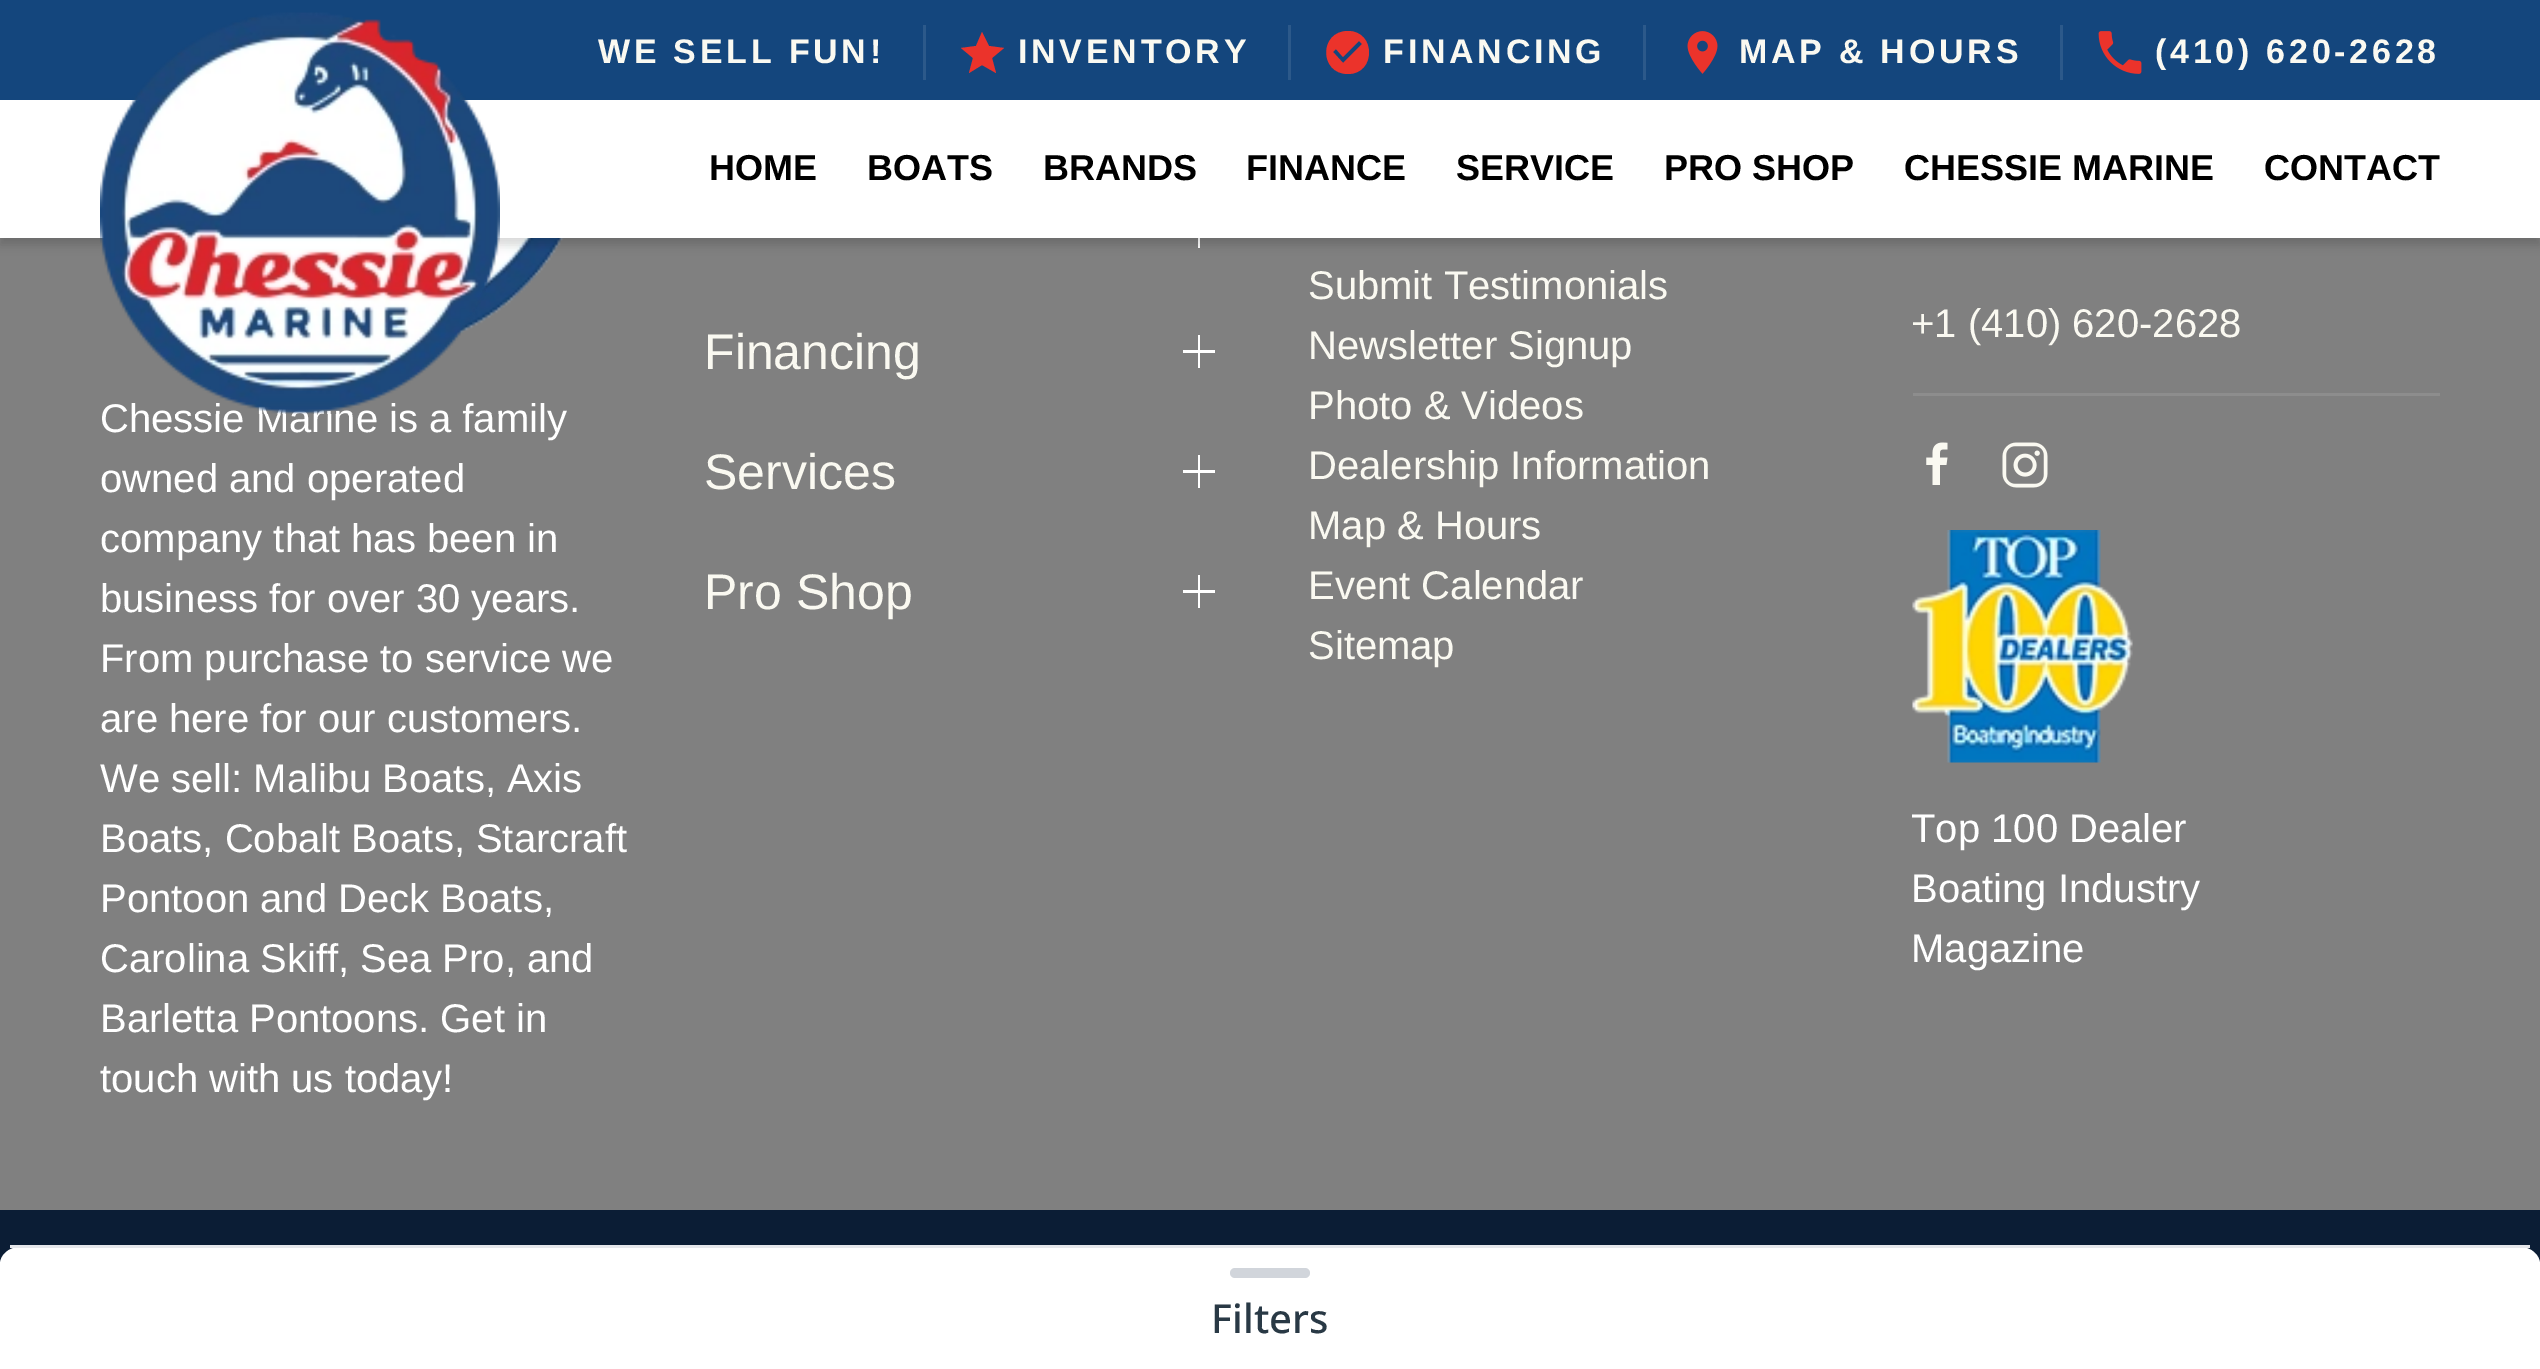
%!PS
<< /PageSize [2540 1369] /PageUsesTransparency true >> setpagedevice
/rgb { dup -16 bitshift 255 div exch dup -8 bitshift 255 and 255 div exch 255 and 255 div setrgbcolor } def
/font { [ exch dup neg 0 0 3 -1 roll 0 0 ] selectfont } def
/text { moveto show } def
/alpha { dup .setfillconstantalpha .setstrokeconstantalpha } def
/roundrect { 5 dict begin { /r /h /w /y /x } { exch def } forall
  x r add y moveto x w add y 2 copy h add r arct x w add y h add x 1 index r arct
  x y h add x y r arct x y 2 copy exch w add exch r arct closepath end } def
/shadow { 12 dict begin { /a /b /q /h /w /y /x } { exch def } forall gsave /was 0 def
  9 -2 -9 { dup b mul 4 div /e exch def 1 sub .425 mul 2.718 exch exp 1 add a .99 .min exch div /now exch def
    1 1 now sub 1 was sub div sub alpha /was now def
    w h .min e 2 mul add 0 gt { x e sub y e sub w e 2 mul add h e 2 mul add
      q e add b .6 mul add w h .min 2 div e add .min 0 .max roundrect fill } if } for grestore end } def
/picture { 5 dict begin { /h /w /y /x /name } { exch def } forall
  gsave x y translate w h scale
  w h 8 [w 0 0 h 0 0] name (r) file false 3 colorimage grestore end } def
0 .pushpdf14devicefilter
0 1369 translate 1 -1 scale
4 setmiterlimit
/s1 { /LiberationSans-Regular 40 font 16#FFFFFF rgb } def
/s2 { /LiberationSans-Bold 36 font 16#000000 rgb } def
/s3 { /LiberationSans-Regular 50 font 16#FAF9F1 rgb } def
/s4 { /LiberationSans-Regular 40 font 16#FAF9F1 rgb } def
/s5 { /NotoSans-Medium 40 font 16#293945 rgb } def
16#808080 rgb
0 0 2540 1369 rectfill
16#14467D rgb
0 0 2540 100 rectfill
/LiberationSans-Bold 34 font
16#FAF9F1 rgb
598 63 moveto 3.75 0 (WE SELL FUN!) ashow
16#2C598A rgb
923 25 3 55 rectfill
16#EB332B rgb
982 65 moveto 996 73 lineto 992 58 lineto 1004 48 lineto 989 46 lineto 982 32 lineto 976 46 lineto 961 48 lineto 973 58 lineto 969 73 lineto closepath fill
16#FAF9F1 rgb
1018 63 moveto 3.75 0 (INVENTORY) ashow
16#2C598A rgb
1288 25 3 55 rectfill
16#EB332B rgb
1348 31 moveto 1319 31 1319 74 1348 74 curveto 1376 74 1376 31 1348 31 curveto 1343 63 moveto 1333 52 lineto 1336 49 lineto 1343 57 lineto 1359 41 lineto 1362 44 lineto closepath fill
16#FAF9F1 rgb
1383 63 moveto 3.75 0 (FINANCING) ashow
16#2C598A rgb
1643 25 3 55 rectfill
(pic1.raw) 1687 31 31 43 picture
16#FAF9F1 rgb
1739 63 moveto 3.75 0 (MAP & HOURS) ashow
16#2C598A rgb
2060 25 3 55 rectfill
(pic2.raw) 2098 31 44 43 picture
16#FAF9F1 rgb
2155 63 moveto 3.75 0 (\(410\) 620-2628) ashow
(pic4.raw) 451 238 113 100 picture
16#FFFFFF rgb
1198 238 2 10 rectfill
16#000000 rgb
0 108 2540 137 0 5 0.15 shadow
16#FFFFFF rgb
0 100 2540 138 rectfill
s1
(Chessie Marine is a family) 100 432 text
(pic3.raw) 100 12 400 402 picture
s2
(HOME) 709 180 text
(BOATS) 867 180 text
(BRANDS) 1043 180 text
(FINANCE) 1246 180 text
(SERVICE) 1456 180 text
(PRO SHOP) 1664 180 text
(CHESSIE MARINE) 1904 180 text
(CONTACT) 2264 180 text
s1
(owned and operated) 100 492 text
(company that has been in) 100 552 text
(business for over 30 years.) 100 612 text
(From purchase to service we) 100 672 text
(are here for our customers.) 100 732 text
(We sell: Malibu Boats, Axis) 100 792 text
(Boats, Cobalt Boats, Starcraft) 100 852 text
(Pontoon and Deck Boats,) 100 912 text
(Carolina Skiff, Sea Pro, and) 100 972 text
(Barletta Pontoons. Get in) 100 1032 text
(touch with us today!) 100 1092 text
s3
(Financing) 704 369 text
16#FFFFFF rgb
1183 350 32 3 rectfill
1198 335 2 33 rectfill
s3
(Services) 704 489 text
16#FFFFFF rgb
1183 470 32 3 rectfill
1198 455 2 33 rectfill
s3
(Pro Shop) 704 609 text
16#FFFFFF rgb
1183 590 32 3 rectfill
1198 575 2 33 rectfill
s4
(Submit Testimonials) 1308 299 text
(Newsletter Signup) 1308 359 text
(Photo & Videos) 1308 419 text
(Dealership Information) 1308 479 text
(Map & Hours) 1308 539 text
(Event Calendar) 1308 599 text
(Sitemap) 1308 659 text
(+1 \(410\) 620-2628) 1911 337 text
16#8D8D8D rgb
1913 393 527 3 rectfill
(pic5.raw) 1926 442 22 43 picture
(pic6.raw) 2002 442 46 46 picture
(pic7.raw) 1912 530 221 233 picture
s1
(Top 100 Dealer) 1911 842 text
(Boating Industry) 1911 902 text
(Magazine) 1911 962 text
16#0B1D35 rgb
0 1210 2540 54 rectfill
16#FFFFFF rgb
20 1247 moveto 2520 1247 lineto 2531 1247 2540 1255 2540 1264 curveto 2540 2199 lineto 0 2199 lineto 0 1264 lineto 0 1255 9 1247 20 1247 curveto closepath fill
16#E5E7EB rgb
10 1245 2520 3 rectfill
16#D1D5DB rgb
1230 1268 80 10 5 roundrect fill
s5
(Filters) 1211 1333 text
.poppdf14devicefilter showpage
